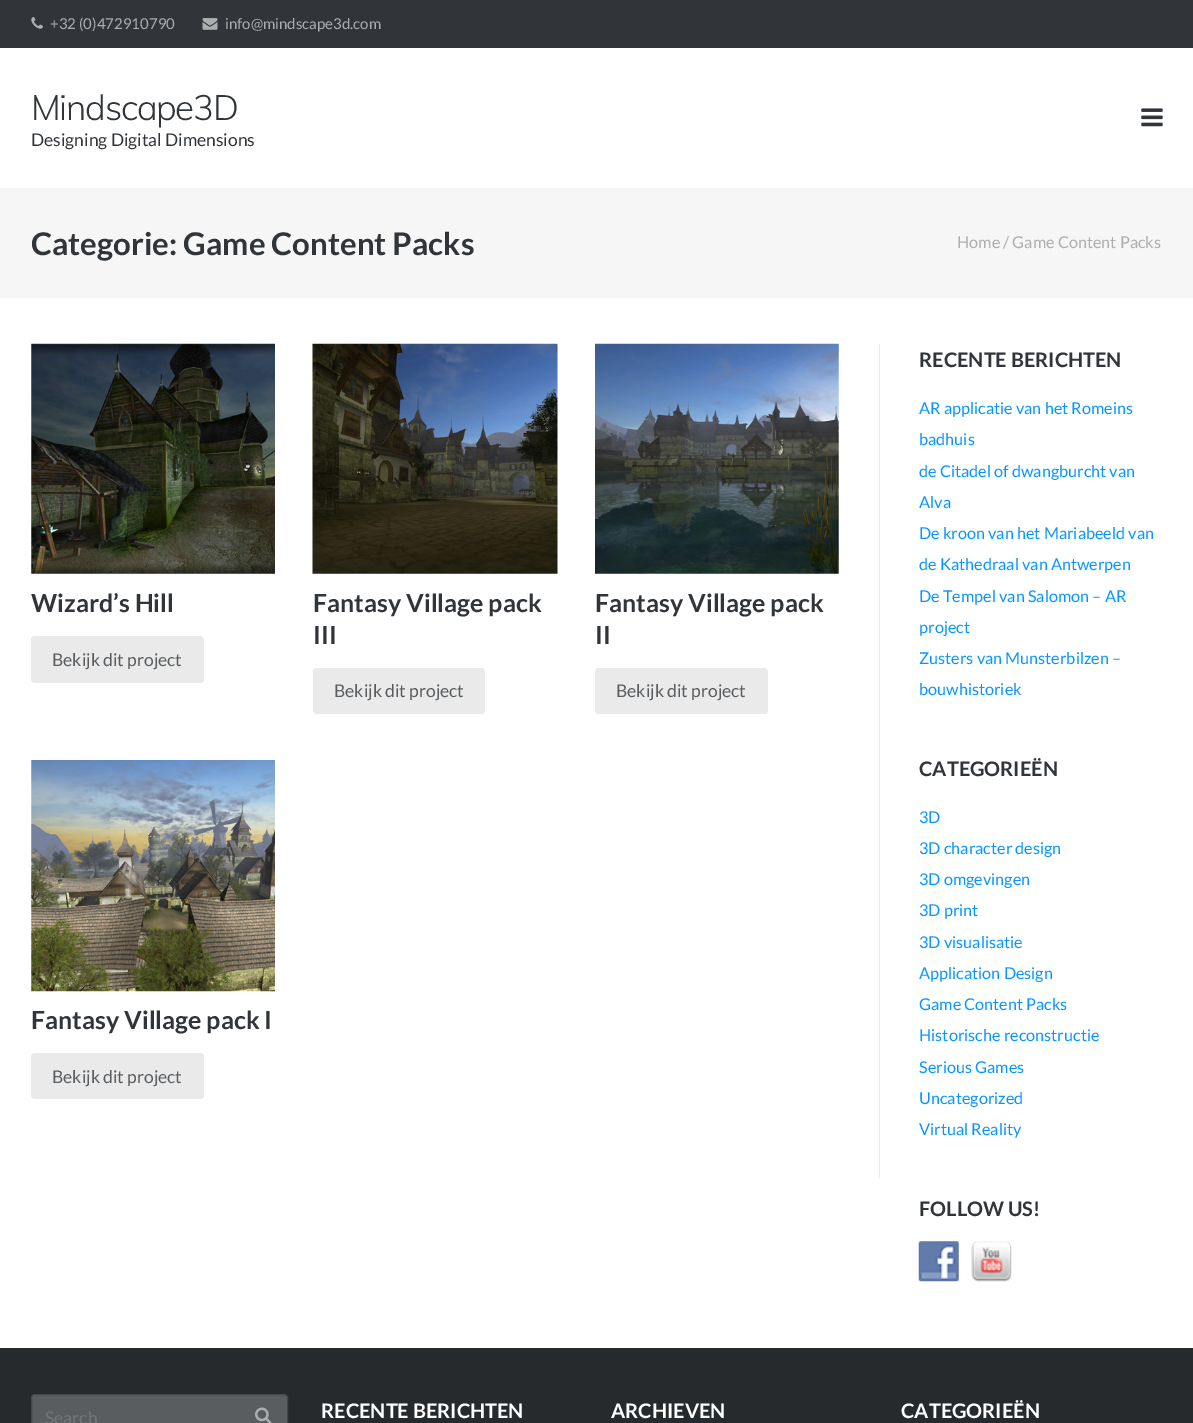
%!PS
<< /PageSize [1193 1423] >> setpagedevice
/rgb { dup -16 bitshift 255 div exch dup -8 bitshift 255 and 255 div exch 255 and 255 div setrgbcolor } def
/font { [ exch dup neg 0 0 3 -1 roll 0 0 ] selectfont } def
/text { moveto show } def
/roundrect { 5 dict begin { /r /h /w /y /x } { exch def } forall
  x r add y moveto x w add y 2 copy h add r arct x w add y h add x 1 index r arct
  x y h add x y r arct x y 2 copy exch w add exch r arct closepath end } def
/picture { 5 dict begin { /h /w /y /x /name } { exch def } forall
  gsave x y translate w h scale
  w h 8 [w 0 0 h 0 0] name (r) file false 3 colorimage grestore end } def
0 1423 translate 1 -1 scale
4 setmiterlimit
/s1 { /Lato-Regular 15 font 16#ACAEAF rgb } def
/s2 { /Lato-Regular 17.5 font 16#313539 rgb } def
/s3 { /Lato-Bold 31.25 font 16#313539 rgb } def
/s4 { /Lato-Regular 16.25 font 16#ACAEAF rgb } def
/s5 { /Lato-Bold 25 font 16#313539 rgb } def
/s6 { /Lato-Regular 17.5 font 16#5A5D60 rgb } def
/s7 { /Lato-Bold 20 font 16#313539 rgb } def
/s8 { /Lato-Regular 16.25 font 16#0896FE rgb } def
/s9 { /Lato-Regular 17.5 font 16#757575 rgb } def
/s10 { /Lato-Bold 20 font 16#FFFFFF rgb } def
16#FFFFFF rgb
0 0 1193 1423 rectfill
16#313539 rgb
0 0 1193 48 rectfill
(pic1.raw) 31 17 12 12 picture
s1
(+32 \(0\)472910790) 50 29 text
(pic2.raw) 202 18 16 12 picture
(info@mindscape3d.com) 225 29 text
/Muli-Light 35 font
16#313539 rgb
31 120 moveto -1.25 0 (Mindscape3D) ashow
s2
(Designing Digital Dimensions) 31 146 text
(pic3.raw) 1141 108 22 19 picture
16#F6F6F7 rgb
0 188 1193 110 rectfill
s3
(Categorie: Game Content Packs) 31 255 text
s4
(Home / Game Content Packs) 957 248 text
16#EAEAEB rgb
879 344 1 834 rectfill
(pic4.raw) 31 343 244 231 picture
s5
(Wizard’s Hill) 31 612 text
16#EAEAEA rgb
31 636 173 47 4 roundrect fill
s6
(Bekijk dit project) 52 666 text
(pic5.raw) 312 343 246 231 picture
s5
(Fantasy Village pack) 313 612 text
(III) 313 644 text
16#EAEAEA rgb
313 668 172 46 4 roundrect fill
s6
(Bekijk dit project) 334 697 text
(pic6.raw) 595 343 244 231 picture
s5
(Fantasy Village pack) 595 612 text
(II) 595 644 text
16#EAEAEA rgb
595 668 173 46 4 roundrect fill
s6
(Bekijk dit project) 616 697 text
(pic7.raw) 31 760 244 232 picture
s5
(Fantasy Village pack I) 31 1029 text
16#EAEAEA rgb
31 1053 173 46 4 roundrect fill
s6
(Bekijk dit project) 52 1083 text
s7
(RECENTE BERICHTEN) 919 367 text
s8
(AR applicatie van het Romeins) 919 414 text
(badhuis) 919 445 text
(de Citadel of dwangburcht van) 919 477 text
(Alva) 919 508 text
(De kroon van het Mariabeeld van) 919 539 text
(de Kathedraal van Antwerpen) 919 570 text
(De Tempel van Salomon – AR) 919 602 text
(project) 919 633 text
(Zusters van Munsterbilzen –) 919 664 text
(bouwhistoriek) 919 695 text
s7
(CATEGORIEËN) 919 776 text
s8
(3D) 919 823 text
(3D character design) 919 854 text
(3D omgevingen) 919 885 text
(3D print) 919 916 text
(3D visualisatie) 919 948 text
(Application Design) 919 979 text
(Game Content Packs) 919 1010 text
(Historische reconstructie) 919 1041 text
(Serious Games) 919 1073 text
(Uncategorized) 919 1104 text
(Virtual Reality) 919 1135 text
s7
(FOLLOW US!) 919 1216 text
(pic8.raw) 918 1241 41 41 picture
(pic9.raw) 971 1241 41 41 picture
16#272A2D rgb
0 1348 1193 75 rectfill
16#5A5D60 rgb
31.5 1394.5 256 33 3.5 roundrect gsave fill grestore
16#45494C rgb
stroke
s9
(Search) 45 1424 text
(pic10.raw) 255 1407 17 16 picture
s10
(RECENTE BERICHTEN) 321 1418 text
(ARCHIEVEN) 611 1418 text
(CATEGORIEËN) 901 1418 text
showpage
